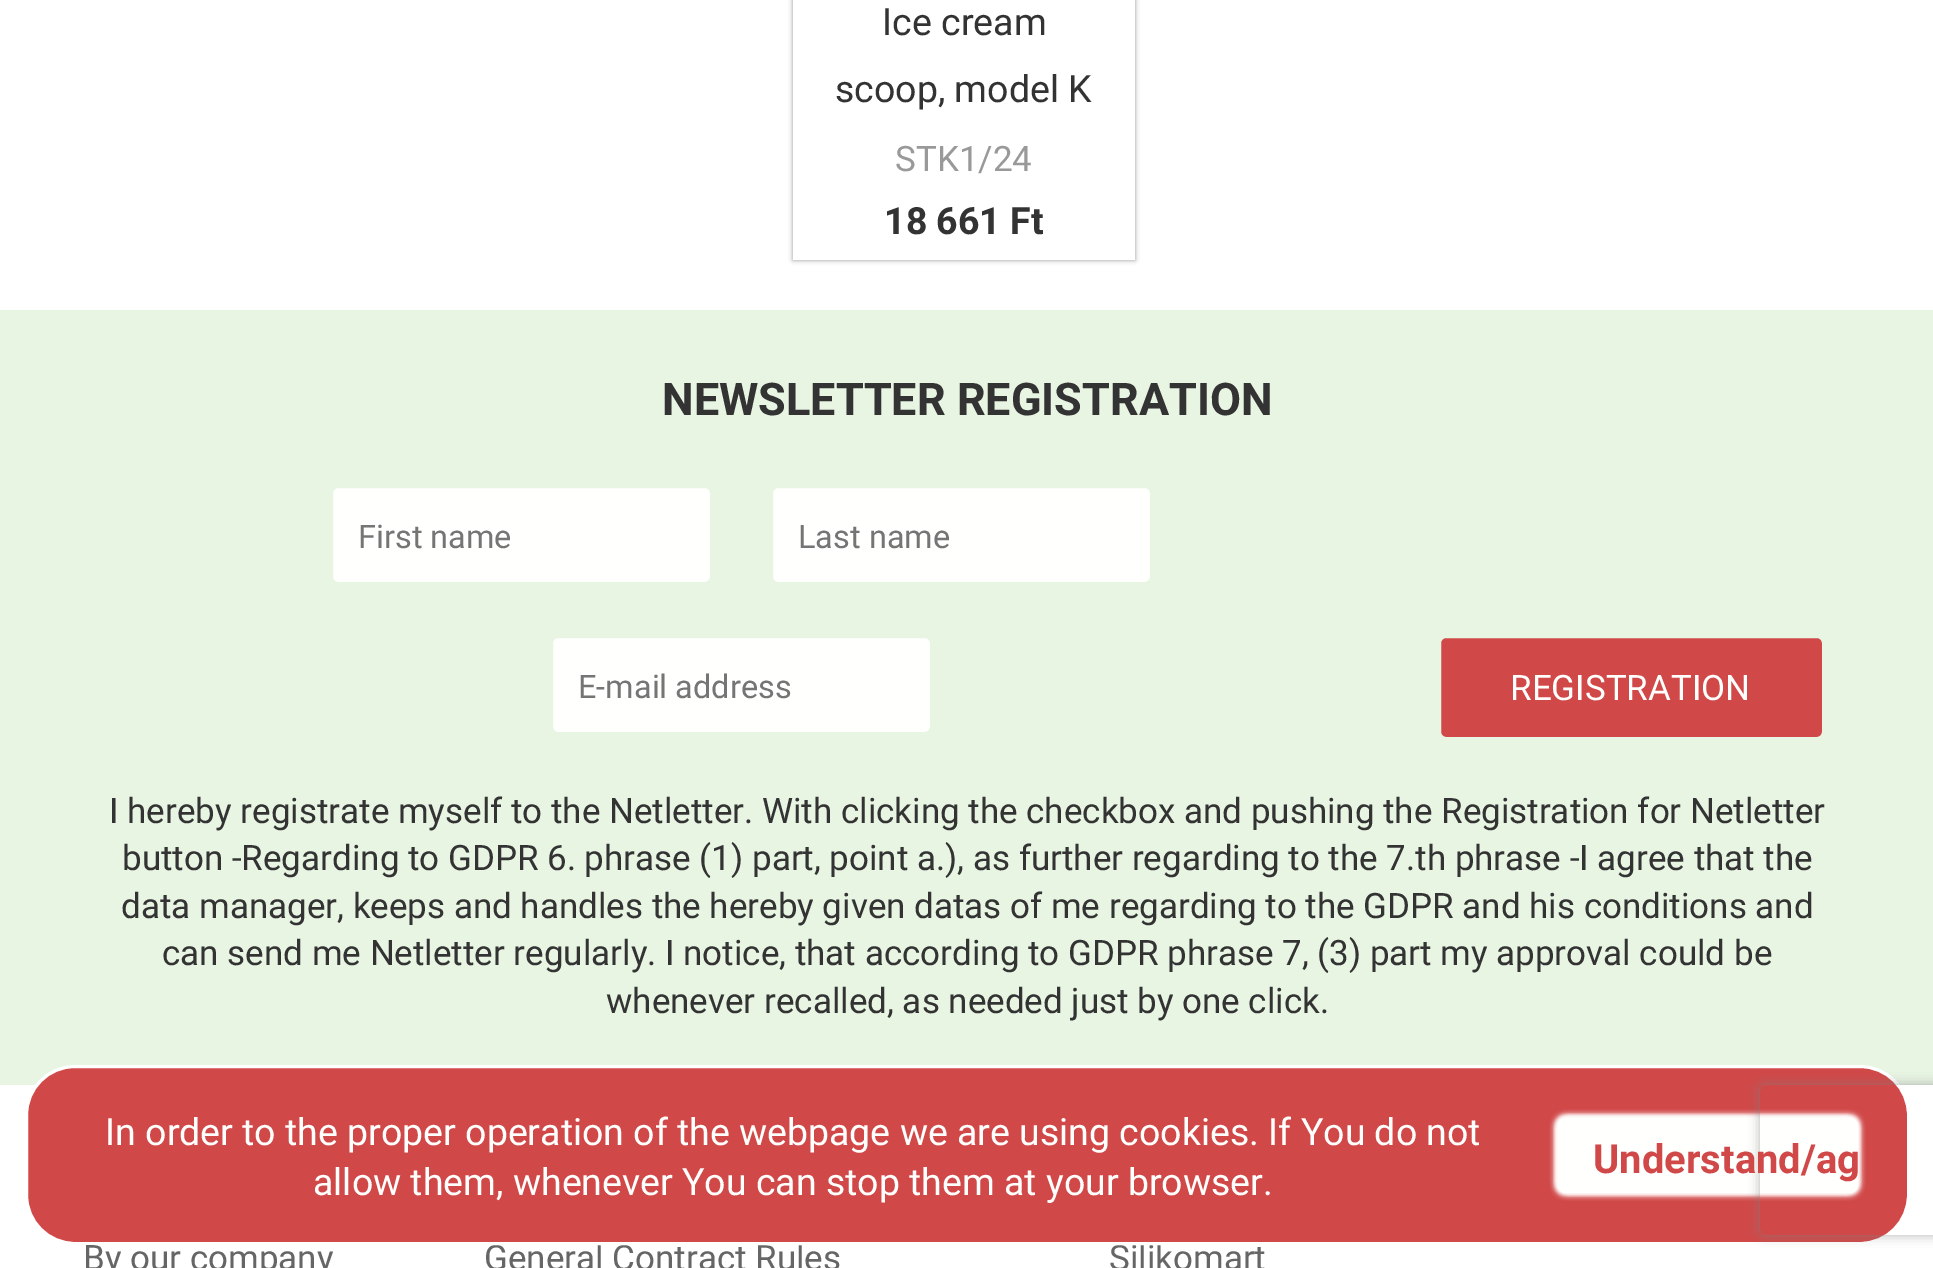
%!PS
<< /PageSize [1933 1268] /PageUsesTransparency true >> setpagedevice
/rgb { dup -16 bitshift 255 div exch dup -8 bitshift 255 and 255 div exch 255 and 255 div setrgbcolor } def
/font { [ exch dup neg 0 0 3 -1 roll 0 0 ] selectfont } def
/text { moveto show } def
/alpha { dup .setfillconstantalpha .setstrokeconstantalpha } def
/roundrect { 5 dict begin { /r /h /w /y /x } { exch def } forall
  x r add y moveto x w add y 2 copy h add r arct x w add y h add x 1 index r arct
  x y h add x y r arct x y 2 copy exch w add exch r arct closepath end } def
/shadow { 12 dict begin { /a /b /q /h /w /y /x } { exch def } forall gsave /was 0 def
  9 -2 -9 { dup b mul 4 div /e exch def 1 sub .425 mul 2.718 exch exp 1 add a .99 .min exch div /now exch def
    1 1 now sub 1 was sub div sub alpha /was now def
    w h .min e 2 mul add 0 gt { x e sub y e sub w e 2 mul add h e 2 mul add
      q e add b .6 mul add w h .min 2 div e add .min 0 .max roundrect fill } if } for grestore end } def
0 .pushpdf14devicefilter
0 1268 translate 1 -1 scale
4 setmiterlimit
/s1 { /Roboto-Regular 37.5 font 16#333333 rgb } def
/s2 { /Roboto-Regular 35 font 16#999999 rgb } def
/s3 { /Roboto-Bold 37.5 font 16#333333 rgb } def
/s4 { /Roboto-Bold 45 font 16#333333 rgb } def
/s5 { /Roboto-Regular 32.5 font 16#757575 rgb } def
/s6 { /Roboto-Regular 35 font 16#FFFFFE rgb } def
/s7 { /Roboto-Regular 35 font 16#666666 rgb } def
/s8 { /Roboto-Regular 35 font 16#333333 rgb } def
/s9 { /Roboto-Regular 37.5 font 16#FFFFFE rgb } def
/s10 { /Roboto-Bold 40 font 16#D14848 rgb } def
16#FFFFFF rgb
0 0 1933 1268 rectfill
gsave
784 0 moveto 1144 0 lineto 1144 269 lineto 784 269 lineto closepath 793 -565 moveto 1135 -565 lineto 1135 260 lineto 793 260 lineto closepath eoclip newpath
16#999999 rgb
793 -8 342 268 0 2.5 1 shadow
grestore
s1
(Ice cream) 882 35 text
(scoop, model K) 835 102 text
s2
(STK1/24) 895 171 text
s3
(18 661 Ft) 884 234 text
16#E8F5E3 rgb
0 310 1933 775 rectfill
s4
(NEWSLETTER REGISTRATION) 662 415 text
16#FFFFFE rgb
331.5 486.5 380 97 6.5 roundrect gsave fill grestore
16#E8F5E3 rgb
3 setlinewidth
stroke
s5
(First name) 358 548 text
16#FFFFFE rgb
771.5 486.5 380 97 6.5 roundrect gsave fill grestore
16#E8F5E3 rgb
stroke
s5
(Last name) 798 548 text
16#FFFFFE rgb
551.5 636.5 380 97 6.5 roundrect gsave fill grestore
16#E8F5E3 rgb
stroke
s5
(E-mail address) 578 698 text
16#D14848 rgb
1439.5 636.5 384 102 6.5 roundrect gsave fill grestore
16#E8F5E3 rgb
stroke
s6
(REGISTRATION) 1510 700 text
s7
(General Contract Rules) 484 1270 text
(Silikomart) 1109 1270 text
16#D14848 rgb
26.5 1066.5 1882 177 48.5 roundrect gsave fill grestore
16#FFFFFF rgb
stroke
16#FFFFFE rgb
1560 1115 300 75 8 2.5 1 shadow
1555 1120 300 75 8 2.5 1 shadow
1555 1115 300 75 8 2.5 1 shadow
1560 1120 300 75 8 2.5 1 shadow
1558 1118 300 75 8 roundrect fill
gsave
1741 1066 moveto 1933 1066 lineto 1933 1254 lineto 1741 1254 lineto closepath 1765 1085 moveto 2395 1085 lineto 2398 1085 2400 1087 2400 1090 curveto 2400 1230 lineto 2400 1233 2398 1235 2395 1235 curveto 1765 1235 lineto 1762 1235 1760 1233 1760 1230 curveto 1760 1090 lineto 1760 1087 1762 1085 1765 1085 curveto closepath eoclip newpath
16#808080 rgb
1760 1085 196 150 5 6 0.6 shadow
grestore
s8
(I hereby registrate myself to the Netletter. With clicking the checkbox and pushing the Registration for Netletter) 109 823 text
(button -Regarding to GDPR 6. phrase \(1\) part, point a.\), as further regarding to the 7.th phrase -I agree that the) 122 870 text
(data manager, keeps and handles the hereby given datas of me regarding to the GDPR and his conditions and) 121 918 text
(can send me Netletter regularly. I notice, that according to GDPR phrase 7, \(3\) part my approval could be) 162 965 text
(whenever recalled, as needed just by one click.) 606 1013 text
s9
(In order to the proper operation of the webpage we are using cookies. If You do not) 105 1145 text
(allow them, whenever You can stop them at your browser.) 313 1195 text
s10
(Understand/ag) 1593 1173 text
s7
(By our company) 83 1270 text
.poppdf14devicefilter showpage
